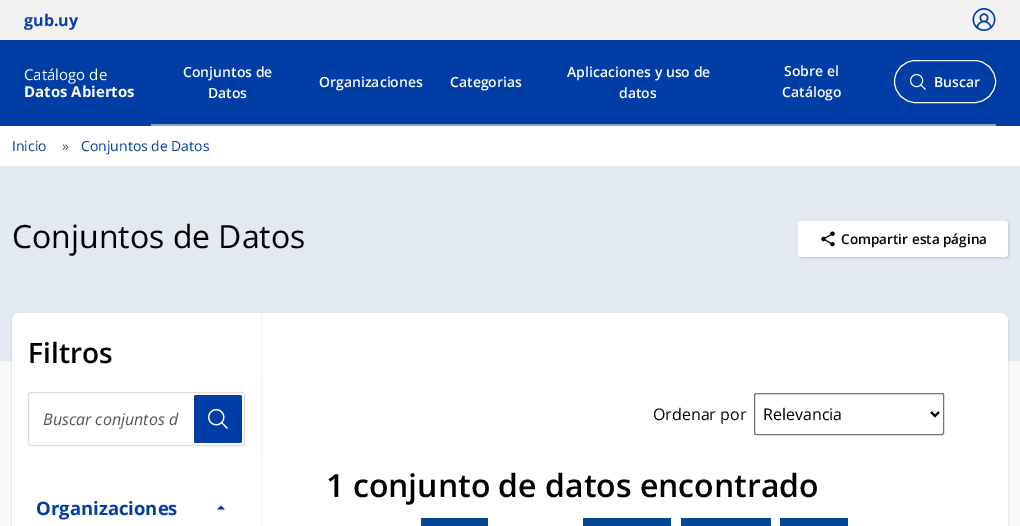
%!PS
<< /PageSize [1020 526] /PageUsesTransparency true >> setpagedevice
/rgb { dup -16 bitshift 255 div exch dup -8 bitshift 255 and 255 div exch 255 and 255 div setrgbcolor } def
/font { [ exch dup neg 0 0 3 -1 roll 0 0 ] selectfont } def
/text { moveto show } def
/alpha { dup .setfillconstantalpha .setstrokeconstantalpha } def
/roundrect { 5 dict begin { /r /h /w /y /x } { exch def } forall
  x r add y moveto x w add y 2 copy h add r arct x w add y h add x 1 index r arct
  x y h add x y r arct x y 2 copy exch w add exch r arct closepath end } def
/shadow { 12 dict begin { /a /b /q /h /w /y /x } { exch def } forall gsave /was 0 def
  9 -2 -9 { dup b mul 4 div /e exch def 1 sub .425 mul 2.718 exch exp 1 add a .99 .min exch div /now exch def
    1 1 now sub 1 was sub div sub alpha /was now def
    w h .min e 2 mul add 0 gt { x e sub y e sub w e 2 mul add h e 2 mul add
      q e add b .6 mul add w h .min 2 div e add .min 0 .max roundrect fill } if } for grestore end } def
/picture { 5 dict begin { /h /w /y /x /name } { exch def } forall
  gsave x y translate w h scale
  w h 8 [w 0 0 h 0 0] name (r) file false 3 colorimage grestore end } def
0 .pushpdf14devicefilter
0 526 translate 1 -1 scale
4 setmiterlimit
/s1 { /OpenSans-Bold 16 font 16#003DA5 rgb } def
/s2 { /OpenSans-Regular 15 font 16#FFFFFF rgb } def
/s3 { /OpenSans-Bold 15 font 16#FFFFFF rgb } def
/s4 { /OpenSans-SemiBold 14 font 16#FFFFFF rgb } def
/s5 { /OpenSans-Regular 14 font 16#003DA5 rgb } def
/s6 { /OpenSans-Regular 14 font 16#555555 rgb } def
/s7 { /OpenSans-Regular 32 font 16#000000 rgb } def
/s8 { /OpenSans-SemiBold 13.6 font 16#000000 rgb } def
/s9 { /OpenSans-SemiBold 28 font 16#000000 rgb } def
/s10 { /OpenSans-Italic 16 font 16#555555 rgb } def
/s11 { /OpenSans-Bold 18.5 font 16#003DA5 rgb } def
/s12 { /OpenSans-Regular 16 font 16#000000 rgb } def
/s13 { /OpenSans-SemiBold 32 font 16#000000 rgb } def
16#003DA5 rgb
0 0 1020 526 rectfill
16#F2F2F2 rgb
0 0 1020 40 rectfill
s1
(gub.uy) 24 26 text
(pic1.raw) 972 8 24 23 picture
s2
(Catálogo de) 24 80 text
s3
(Datos Abiertos) 24 97 text
16#87A5C0 rgb
151 124 731 2 rectfill
s4
(Conjuntos de) 183 77 text
(Datos) 208 98 text
(Organizaciones) 319 87 text
(Categorias) 450 87 text
(Aplicaciones y uso de) 567 77 text
(datos) 619 98 text
(Sobre el) 784 76 text
(Catálogo) 782 97 text
16#87A5C0 rgb
882 124 114 2 rectfill
16#000000 rgb
895 61 102 43 21.5 1 0.15 shadow
16#003DA5 rgb
894.5 60.5 101 42 21 roundrect gsave fill grestore
16#FFFFFF rgb
stroke
(pic2.raw) 910 74 16 16 picture
(Buscar) 934 87 text
16#F9F9F9 rgb
0 361 1020 165 rectfill
16#FFFFFF rgb
0 126 1020 40 rectfill
s5
(Inicio) 12 151 text
s6
(») 62 151 text
s5
(Conjuntos de Datos) 81 151 text
16#E2E9F1 rgb
0 166 1020 195 rectfill
s7
(Conjuntos de Datos) 12 248 text
799 222 210 36 3 1 0.15 shadow
16#FFFFFF rgb
798 221 210 36 3 roundrect fill
(pic3.raw) 821 231 14 16 picture
s8
(Compartir esta página) 841 244 text
12 315 996 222 8 1 0.18 shadow
16#FFFFFF rgb
12 313 996 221 8 roundrect fill
16#EEEEEE rgb
261 313 1 213 rectfill
s9
(Filtros) 28 363 text
16#DDDDDD rgb
28.5 392.5 216 53 2.5 roundrect stroke
s10
(Buscar conjuntos d) 43 425 text
16#003DA5 rgb
194 395 48 48 2 roundrect fill
(pic4.raw) 208 409 20 20 picture
s11
(Organizaciones) 36 515 text
225 509.5 moveto 217 509.5 lineto 221 505.5 lineto closepath fill
s12
(Ordenar por) 653 420 text
16#767676 rgb
754.5 393.5 189 41 1.5 roundrect stroke
16#000000 rgb
2 setlinewidth
931 412 moveto 935 416 lineto 939 412 lineto stroke
(Relevancia) 763 420 text
s13
(1 conjunto de datos encontrado) 326 497 text
16#064795 rgb
421 518 67 8 rectfill
583 518 88 8 rectfill
681 518 90 8 rectfill
780 518 68 8 rectfill
.poppdf14devicefilter showpage
